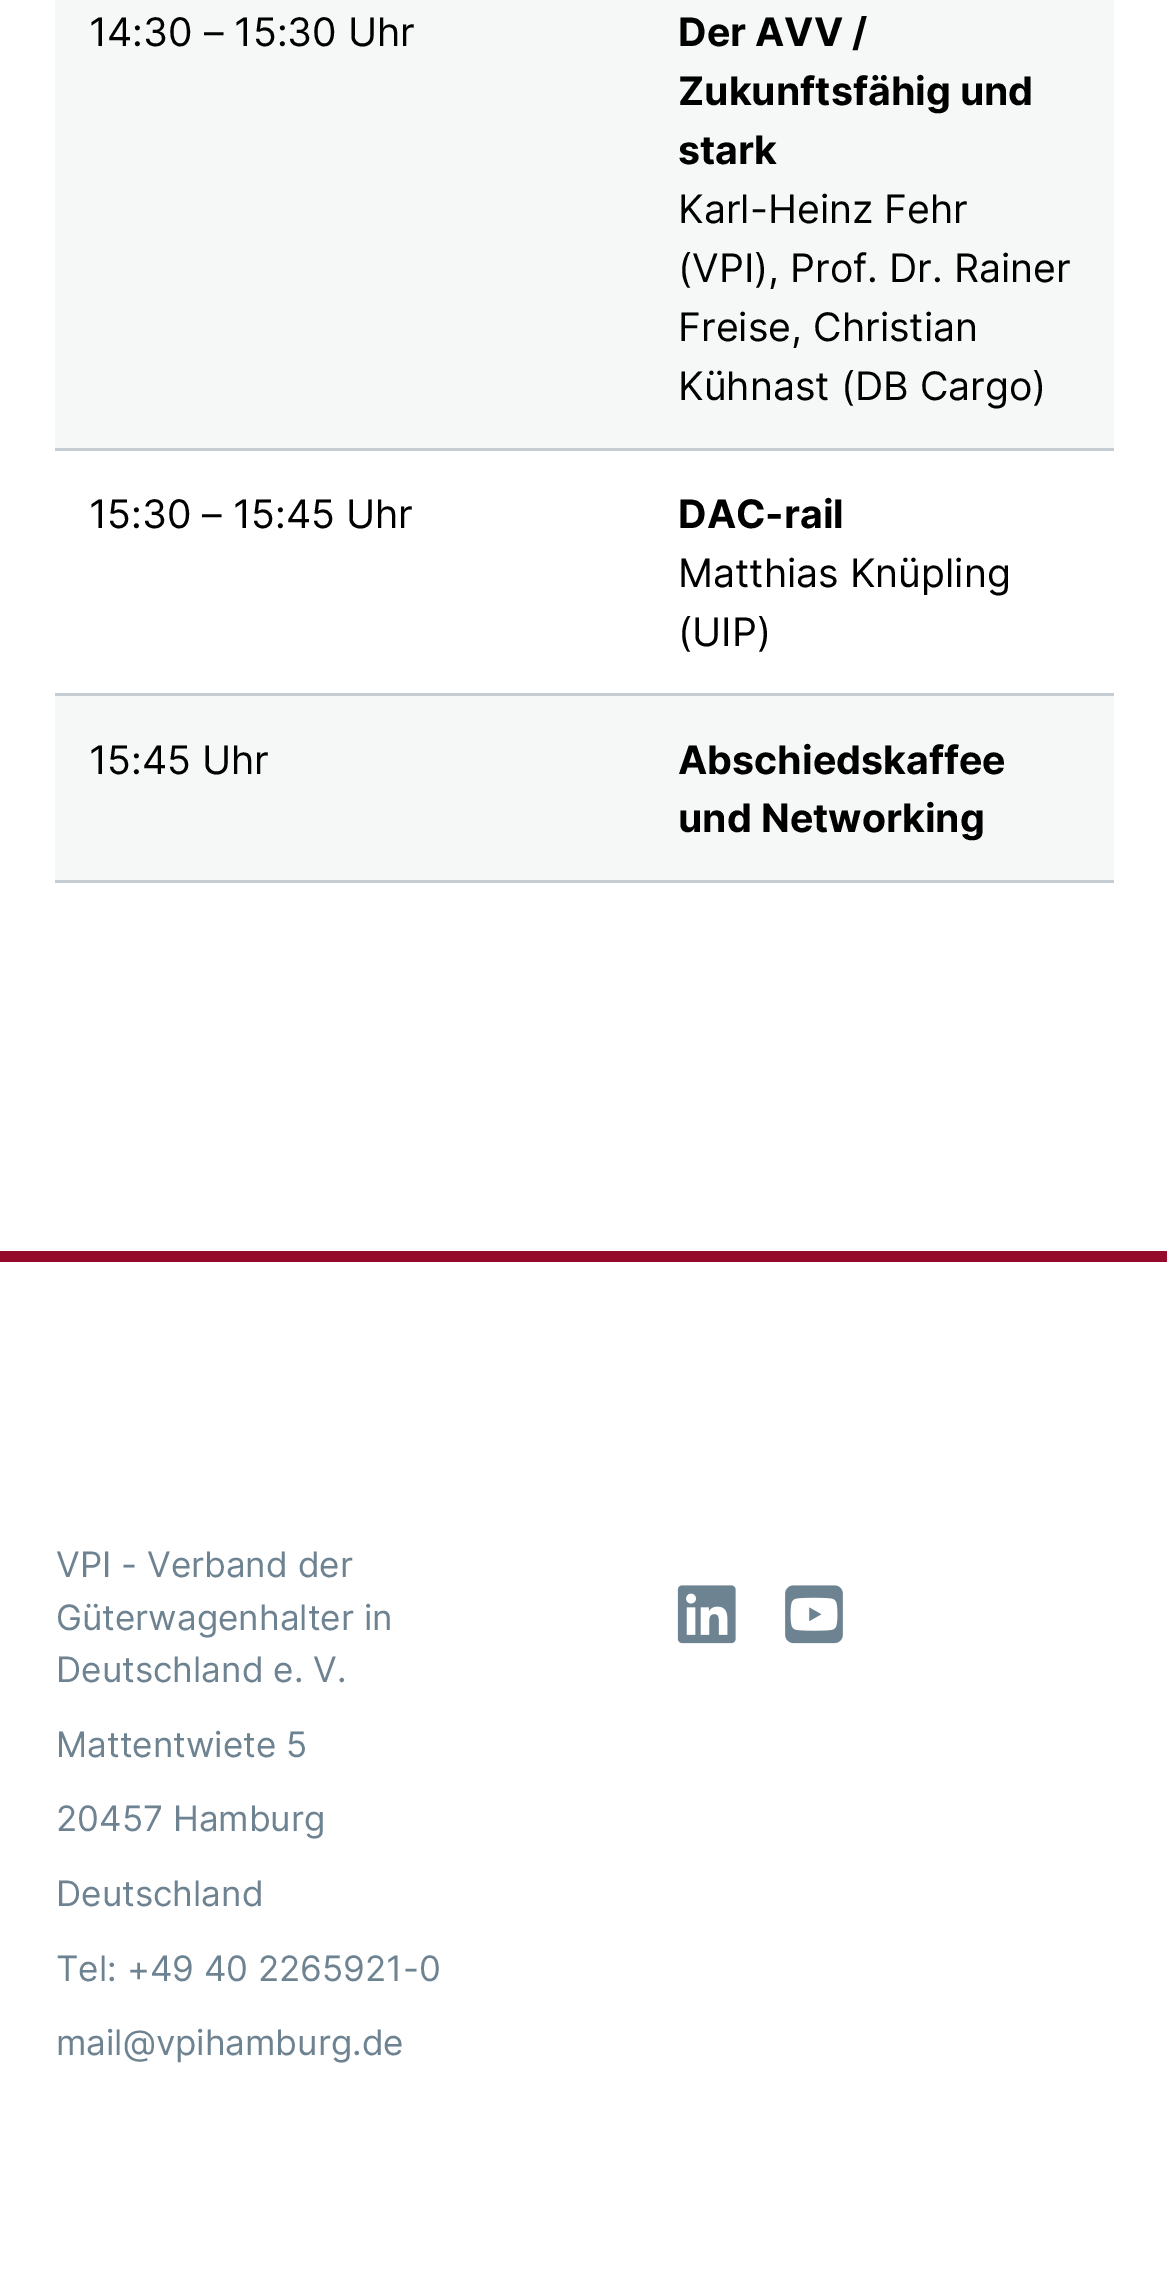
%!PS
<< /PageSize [1167 2276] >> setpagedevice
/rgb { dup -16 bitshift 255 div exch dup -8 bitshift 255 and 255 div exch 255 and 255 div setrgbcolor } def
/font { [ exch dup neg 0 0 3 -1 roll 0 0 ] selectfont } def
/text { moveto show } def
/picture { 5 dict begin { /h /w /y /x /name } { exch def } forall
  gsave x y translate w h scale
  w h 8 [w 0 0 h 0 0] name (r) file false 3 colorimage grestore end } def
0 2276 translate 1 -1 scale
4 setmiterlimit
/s1 { /Inter-Regular 39.25 font 16#000000 rgb } def
/s2 { /Inter-Bold 39.25 font 16#000000 rgb } def
/s3 { /Inter-Regular 35 font 16#6E8391 rgb } def
16#FFFFFF rgb
0 0 1167 2276 rectfill
16#F6F8F8 rgb
55 0 1059 448 rectfill
16#C5CDD3 rgb
55 448 1059 3 rectfill
s1
(14:30 – 15:30 Uhr) 89 46 text
s2
(Der AVV /) 678 46 text
(Zukunftsfähig und) 678 105 text
(stark) 678 164 text
s1
(Karl-Heinz Fehr) 678 223 text
(\(VPI\), Prof. Dr. Rainer) 678 282 text
(Freise, Christian) 678 341 text
(Kühnast \(DB Cargo\)) 678 400 text
16#C5CDD3 rgb
55 693 1059 3 rectfill
s1
(15:30 – 15:45 Uhr) 89 528 text
s2
(DAC-rail) 678 528 text
s1
(Matthias Knüpling) 678 587 text
(\(UIP\)) 678 646 text
16#F6F8F8 rgb
55 696 1059 184 rectfill
16#C5CDD3 rgb
55 880 1059 3 rectfill
s1
(15:45 Uhr) 89 774 text
s2
(Abschiedskaffee) 678 774 text
(und Networking) 678 832 text
16#940A2A rgb
0 1251 1167 11 rectfill
s3
(VPI - Verband der) 56 1577 text
(Güterwagenhalter in) 56 1630 text
(Deutschland e. V.) 56 1682 text
(Mattentwiete 5) 56 1757 text
(20457 Hamburg) 56 1831 text
(Deutschland) 56 1906 text
(Tel: +49 40 2265921-0) 56 1981 text
(mail@vpihamburg.de) 56 2055 text
(pic1.raw) 677 1585 59 59 picture
(pic2.raw) 785 1585 58 59 picture
showpage
